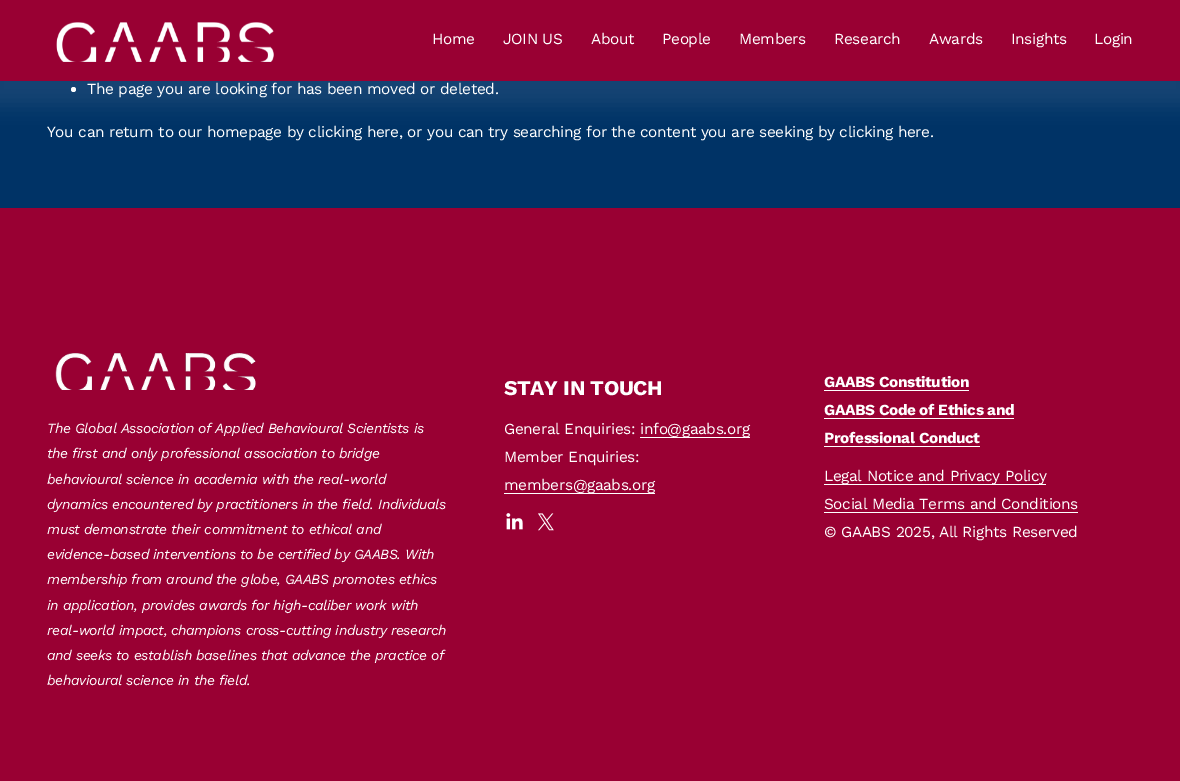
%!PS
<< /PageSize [1180 781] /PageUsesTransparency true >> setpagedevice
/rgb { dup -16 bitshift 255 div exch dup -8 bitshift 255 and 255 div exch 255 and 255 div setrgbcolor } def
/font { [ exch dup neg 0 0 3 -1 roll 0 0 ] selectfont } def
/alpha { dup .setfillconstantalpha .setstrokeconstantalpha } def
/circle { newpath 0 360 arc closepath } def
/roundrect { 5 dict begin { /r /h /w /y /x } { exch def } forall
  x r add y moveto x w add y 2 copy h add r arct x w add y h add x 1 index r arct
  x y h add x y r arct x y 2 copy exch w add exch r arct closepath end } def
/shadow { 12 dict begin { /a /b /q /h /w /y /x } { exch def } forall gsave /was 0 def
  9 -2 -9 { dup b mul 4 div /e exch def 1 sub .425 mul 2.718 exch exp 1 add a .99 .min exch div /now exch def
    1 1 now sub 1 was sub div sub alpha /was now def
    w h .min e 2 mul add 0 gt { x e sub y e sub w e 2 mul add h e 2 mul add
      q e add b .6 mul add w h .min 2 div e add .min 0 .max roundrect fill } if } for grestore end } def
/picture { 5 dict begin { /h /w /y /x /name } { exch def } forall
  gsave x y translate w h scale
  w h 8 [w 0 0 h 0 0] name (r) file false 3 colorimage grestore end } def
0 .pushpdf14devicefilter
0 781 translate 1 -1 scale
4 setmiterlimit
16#003366 rgb
0 0 1180 781 rectfill
16#FFFFFF rgb
73.5 89.5 2.5 circle fill
16#FAFAFA rgb
-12 0 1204 105 0 9 0.08 shadow
16#990033 rgb
0 0 1180 81 rectfill
(pic1.raw) 56 22 218 40 picture
/WorkSans-Regular 15.42 font
16#FFFFFF rgb
432 44 moveto -0.39 0 (Home) ashow
503 44 moveto -0.39 0 (JOIN US) ashow
591 44 moveto -0.39 0 (About) ashow
662 44 moveto -0.39 0 (People) ashow
739 44 moveto -0.39 0 (Members) ashow
834 44 moveto -0.39 0 (Research) ashow
929 44 moveto -0.39 0 (Awards) ashow
1011 44 moveto -0.39 0 (Insights) ashow
1094 44 moveto -0.39 0 (Login) ashow
87 94 moveto -0.39 0 (The page you are looking for has been moved or deleted.) ashow
47 137 moveto -0.39 0 (You can return to our homepage by clicking here, or you can try searching for the content you are seeking by clicking here.) ashow
16#990033 rgb
0 208 1180 573 rectfill
(pic2.raw) 55 352 201 38 picture
/WorkSans-Bold 21 font
16#FFFFFF rgb
504 395 moveto -0.39 0 (STAY IN TOUCH) ashow
/WorkSans-Bold 15.42 font
824 387 moveto -0.39 0 (GAABS Constitution) ashow
824 390 145 1 rectfill
824 415 moveto -0.39 0 (GAABS Code of Ethics and) ashow
824 418 190 1 rectfill
824 443 moveto -0.39 0 (Professional Conduct) ashow
824 446 156 1 rectfill
/WorkSans-Italic 14 font
47 433 moveto -0.39 0 (The Global Association of Applied Behavioural Scientists is) ashow
47 458 moveto -0.39 0 (the first and only professional association to bridge) ashow
47 484 moveto -0.39 0 (behavioural science in academia with the real-world) ashow
47 509 moveto -0.39 0 (dynamics encountered by practitioners in the field. Individuals) ashow
47 534 moveto -0.39 0 (must demonstrate their commitment to ethical and) ashow
47 559 moveto -0.39 0 (evidence-based interventions to be certified by GAABS. With) ashow
47 584 moveto -0.39 0 (membership from around the globe, GAABS promotes ethics) ashow
47 610 moveto -0.39 0 (in application, provides awards for high-caliber work with) ashow
47 635 moveto -0.39 0 (real-world impact, champions cross-cutting industry research) ashow
47 660 moveto -0.39 0 (and seeks to establish baselines that advance the practice of) ashow
47 685 moveto -0.39 0 (behavioural science in the field.) ashow
/WorkSans-Regular 15.42 font
504 434 moveto -0.39 0 (General Enquiries:) ashow
640 437 110 1 rectfill
640 434 moveto -0.39 0 (info@gaabs.org) ashow
504 462 moveto -0.39 0 (Member Enquiries:) ashow
504 493 151 1 rectfill
504 490 moveto -0.39 0 (members@gaabs.org) ashow
(pic3.raw) 506 513 17 17 picture
(pic4.raw) 538 513 16 18 picture
824 484 222 1 rectfill
824 481 moveto -0.39 0 (Legal Notice and Privacy Policy) ashow
824 509 moveto -0.39 0 (Social Media Terms and Conditions) ashow
824 512 254 1 rectfill
824 537 moveto -0.39 0 (© GAABS 2025, All Rights Reserved) ashow
.poppdf14devicefilter showpage
